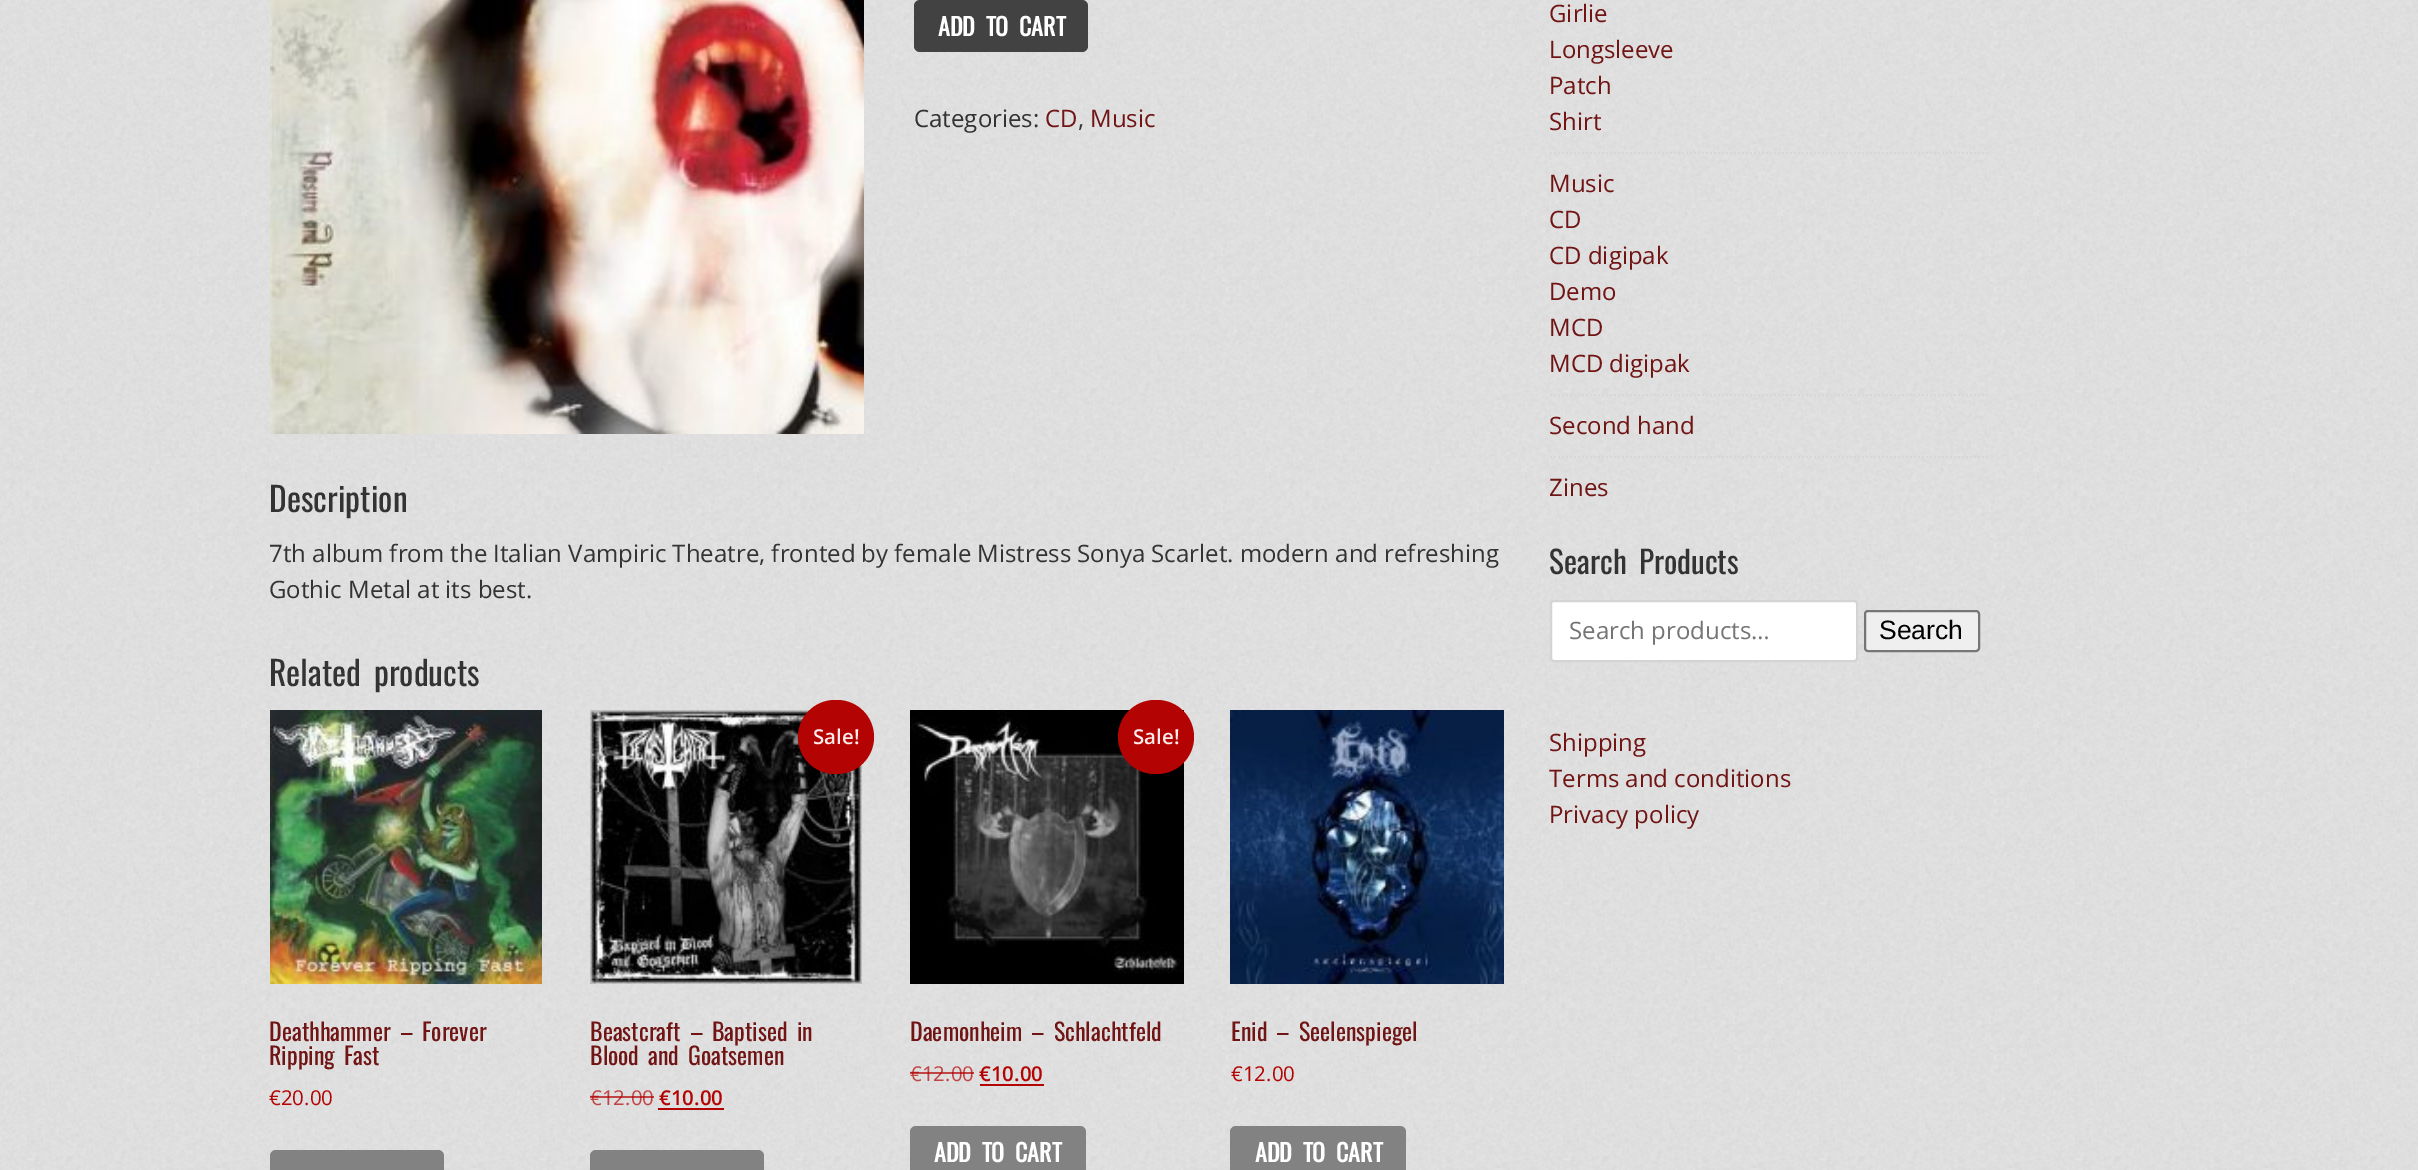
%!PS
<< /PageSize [2418 1170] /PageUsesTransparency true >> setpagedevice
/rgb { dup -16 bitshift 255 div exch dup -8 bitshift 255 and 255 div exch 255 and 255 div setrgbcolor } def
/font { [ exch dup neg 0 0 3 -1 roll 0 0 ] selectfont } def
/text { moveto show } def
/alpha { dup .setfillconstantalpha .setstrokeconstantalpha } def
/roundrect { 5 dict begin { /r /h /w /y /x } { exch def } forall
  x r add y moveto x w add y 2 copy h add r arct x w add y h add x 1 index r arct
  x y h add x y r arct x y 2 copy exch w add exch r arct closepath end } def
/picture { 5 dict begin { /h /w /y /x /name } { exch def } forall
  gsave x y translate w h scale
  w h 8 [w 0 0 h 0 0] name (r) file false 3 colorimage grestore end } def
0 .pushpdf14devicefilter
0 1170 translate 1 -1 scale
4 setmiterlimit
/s1 { /OpenSans-Regular 24 font 16#333333 rgb } def
/s2 { /OpenSans-Regular 24 font 16#701414 rgb } def
/s3 { /Oswald-Regular 33.5 font 16#333333 rgb } def
/s4 { /OpenSans-Regular 20.5 font 16#B30303 rgb } def
/s5 { /OpenSans-SemiBold 20.5 font 16#FDEBEB rgb } def
/s6 { /OpenSans-Regular 20.5 font 16#C04545 rgb } def
/s7 { /OpenSans-SemiBold 20.5 font 16#B30303 rgb } def
/s8 { /OpenSans-Regular 24 font 16#757575 rgb } def
/s9 { /LiberationSans-Regular 26.5 font 16#000000 rgb } def
16#FFFFFF rgb
0 0 2418 1170 rectfill
(pic1.raw) 0 0 2418 1170 picture
(pic2.raw) 270 0 594 434 picture
16#424242 rgb
914 0 174 52 6 roundrect fill
/Oswald-Bold 24 font
16#FFFFFF rgb
938 36 moveto 5 0 32 (ADD TO CART) widthshow
s1
(Categories:) 914 127 text
s2
(CD) 1045 127 text
s1
(,) 1078 127 text
s2
(Music) 1090 127 text
s3
(Description) 269 512 text
s1
(7th album from the Italian Vampiric Theatre, fronted by female Mistress Sonya Scarlet. modern and refreshing) 269 562 text
(Gothic Metal at its best.) 269 598 text
/Oswald-Regular 33.5 font
269 686 moveto 5 0 32 (Related products) widthshow
(pic3.raw) 270 710 272 274 picture
/Oswald-Regular 24 font
16#701414 rgb
269 1041 moveto 3.5 0 32 (Deathhammer – Forever) widthshow
269 1065 moveto 3.5 0 32 (Ripping Fast) widthshow
s4
(€20.00) 269 1105 text
16#828282 rgb
270 1150 174 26 6 roundrect fill
(pic4.raw) 590 710 272 274 picture
16#B30303 rgb
798 700 76 74 37 roundrect fill
s5
(Sale!) 813 744 text
/Oswald-Regular 24 font
16#701414 rgb
590 1041 moveto 3.5 0 32 (Beastcraft – Baptised in) widthshow
590 1065 moveto 3.5 0 32 (Blood and Goatsemen) widthshow
s6
(€12.00) 590 1105 text
0.7 alpha
16#B30303 rgb
590 1096 12 2 rectfill
602 1096 52 2 rectfill
1 alpha
s7
(€10.00) 659 1105 text
658 1108 66 2 rectfill
16#828282 rgb
590 1150 174 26 6 roundrect fill
(pic5.raw) 910 710 274 274 picture
16#B30303 rgb
1118 700 76 74 37 roundrect fill
s5
(Sale!) 1133 744 text
/Oswald-Regular 24 font
16#701414 rgb
910 1041 moveto 3.5 0 32 (Daemonheim – Schlachtfeld) widthshow
s6
(€12.00) 910 1081 text
0.7 alpha
16#B30303 rgb
910 1072 12 2 rectfill
922 1072 52 2 rectfill
1 alpha
s7
(€10.00) 979 1081 text
980 1084 64 2 rectfill
16#828282 rgb
910 1126 176 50 6 roundrect fill
/Oswald-Bold 24 font
16#FFFFFF rgb
934 1162 moveto 5 0 32 (ADD TO CART) widthshow
(pic6.raw) 1230 710 274 274 picture
/Oswald-Regular 24 font
16#701414 rgb
1231 1041 moveto 3.5 0 32 (Enid – Seelenspiegel) widthshow
s4
(€12.00) 1231 1081 text
16#828282 rgb
1230 1126 176 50 6 roundrect fill
/Oswald-Bold 24 font
16#FFFFFF rgb
1255 1162 moveto 5 0 32 (ADD TO CART) widthshow
16#D7D7D7 rgb
2 setlinewidth
[2 2] 0 setdash
1550 153 moveto 1990 153 lineto stroke
s2
(Girlie) 1549 22 text
(Longsleeve) 1549 58 text
(Patch) 1549 94 text
(Shirt) 1549 130 text
16#D7D7D7 rgb
1550 395 moveto 1990 395 lineto stroke
s2
(Music) 1549 192 text
(CD) 1549 228 text
(CD digipak) 1549 264 text
(Demo) 1549 300 text
(MCD) 1549 336 text
(MCD digipak) 1549 372 text
16#D7D7D7 rgb
1550 457 moveto 1990 457 lineto stroke
s2
(Second hand) 1549 434 text
(Zines) 1549 496 text
/Oswald-Regular 31.25 font
16#333333 rgb
1549 574 moveto 5 0 32 (Search Products) widthshow
16#FFFFFF rgb
1551 601 306 60 3 roundrect gsave fill grestore
16#D4D4D4 rgb
[] 0 setdash
stroke
s8
(Search products…) 1569 639 text
16#EFEFEF rgb
1865 611 114 40 3 roundrect gsave fill grestore
16#767676 rgb
stroke
s9
(Search) 1879 639 text
s2
(Shipping) 1549 751 text
(Terms and conditions) 1549 787 text
(Privacy policy) 1549 823 text
.poppdf14devicefilter showpage
